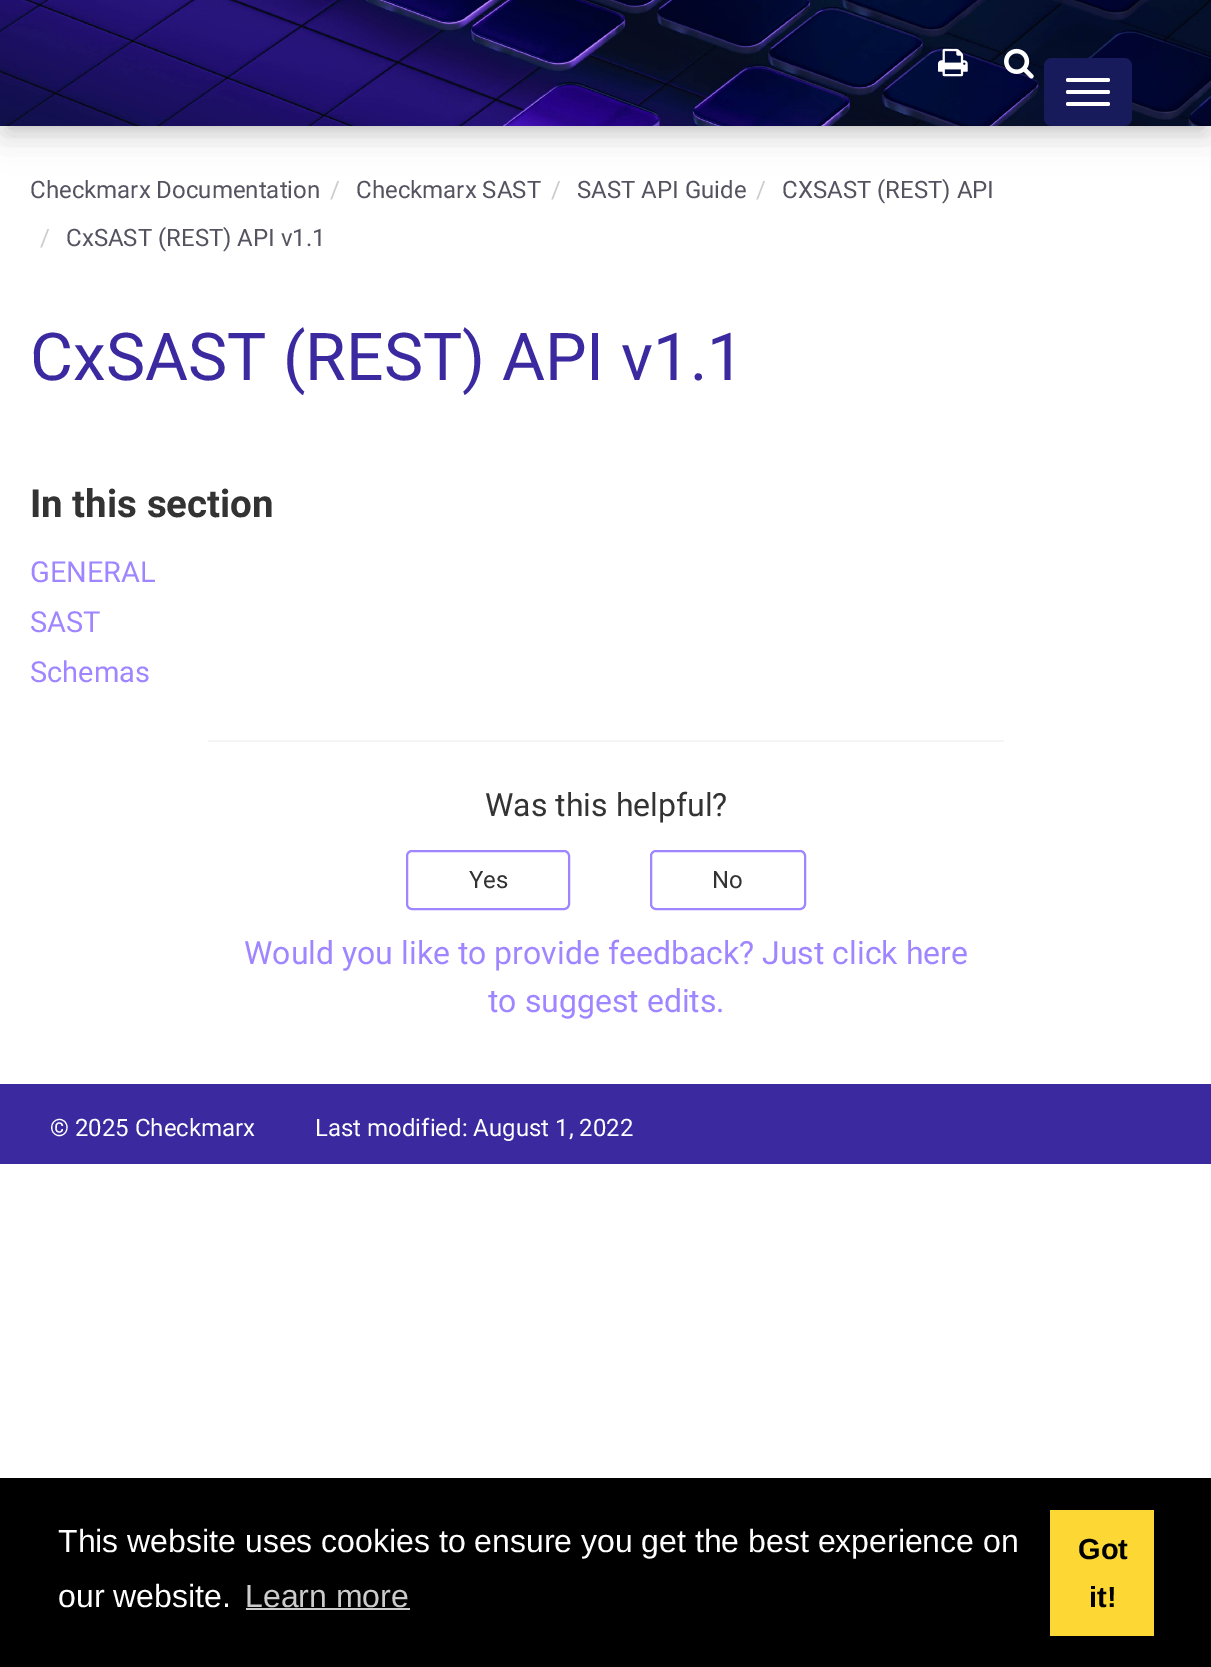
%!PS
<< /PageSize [1211 1667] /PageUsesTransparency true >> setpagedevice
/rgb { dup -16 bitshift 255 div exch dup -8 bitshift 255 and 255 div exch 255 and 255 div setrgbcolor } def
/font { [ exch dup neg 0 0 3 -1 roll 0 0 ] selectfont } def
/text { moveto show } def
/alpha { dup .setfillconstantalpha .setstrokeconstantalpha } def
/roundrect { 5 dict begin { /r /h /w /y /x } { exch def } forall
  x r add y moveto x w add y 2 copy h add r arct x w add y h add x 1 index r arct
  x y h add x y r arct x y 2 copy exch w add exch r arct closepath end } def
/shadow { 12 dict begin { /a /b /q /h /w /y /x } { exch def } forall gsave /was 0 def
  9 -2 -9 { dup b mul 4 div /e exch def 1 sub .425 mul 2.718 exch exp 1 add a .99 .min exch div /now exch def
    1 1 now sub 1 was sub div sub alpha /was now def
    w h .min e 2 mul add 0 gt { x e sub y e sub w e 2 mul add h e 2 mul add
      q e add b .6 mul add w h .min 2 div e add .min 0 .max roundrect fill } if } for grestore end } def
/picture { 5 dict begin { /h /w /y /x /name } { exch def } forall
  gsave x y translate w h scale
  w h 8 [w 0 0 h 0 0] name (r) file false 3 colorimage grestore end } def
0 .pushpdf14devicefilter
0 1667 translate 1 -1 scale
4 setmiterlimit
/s1 { /Roboto-Regular 24 font 16#565360 rgb } def
/s2 { /Roboto-Regular 24 font 16#CCCCCC rgb } def
/s3 { /Roboto-Regular 66 font 16#3B29A0 rgb } def
/s4 { /Roboto-Bold 38.5 font 16#333333 rgb } def
/s5 { /Roboto-Regular 29 font 16#9F85FF rgb } def
/s6 { /Roboto-Regular 32 font 16#333333 rgb } def
/s7 { /Roboto-Regular 24 font 16#333333 rgb } def
/s8 { /Roboto-Regular 32 font 16#9F85FF rgb } def
/s9 { /Roboto-Regular 24 font 16#FFFFFF rgb } def
/s10 { /LiberationSans-Regular 32 font 16#FFFFFF rgb } def
/s11 { /LiberationSans-Regular 32 font 16#CCCCCC rgb } def
/s12 { /LiberationSans-Bold 29 font 16#000000 rgb } def
16#FFFFFF rgb
0 0 1211 1667 rectfill
16#000000 rgb
10 24 1192 106 0 10 0.15 shadow
0 8 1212 126 0 18 0.12 shadow
(pic1.raw) 0 0 1211 126 picture
(pic2.raw) 938 48 30 29 picture
(pic3.raw) 1004 48 30 31 picture
16#171B5C rgb
1044 58 88 68 8 roundrect fill
16#FFFFFF rgb
1066 78 44 4 2 roundrect fill
1066 90 44 4 2 roundrect fill
1066 102 44 4 2 roundrect fill
s1
(Checkmarx Documentation) 30 198 text
s2
(/) 330 198 text
s1
(Checkmarx SAST) 356 198 text
s2
(/) 551 198 text
s1
(SAST API Guide) 577 198 text
s2
(/) 756 198 text
s1
(CXSAST \(REST\) API) 782 198 text
s2
(/) 40 246 text
s1
(CxSAST \(REST\) API v1.1) 66 246 text
s3
(CxSAST \(REST\) API v1.1) 30 380 text
s4
(In this section) 30 517 text
s5
(GENERAL) 30 582 text
(SAST) 30 632 text
(Schemas) 30 682 text
16#F5F5F5 rgb
208 740 796 2 rectfill
s6
(Was this helpful?) 485 816 text
16#9F85FF rgb
2 setlinewidth
407 851 162 58 5 roundrect stroke
s7
(Yes) 469 888 text
16#9F85FF rgb
651 851 154 58 5 roundrect stroke
s7
(No) 712 888 text
s8
(Would you like to provide feedback? Just click here) 244 964 text
(to suggest edits.) 488 1012 text
16#3B29A0 rgb
0 1084 1211 80 rectfill
s9
(© 2025 Checkmarx) 50 1136 text
(Last modified: August 1, 2022) 315 1136 text
16#000000 rgb
0 1478 1211 189 rectfill
s10
(This website uses cookies to ensure you get the best experience on) 58 1552 text
(our website.) 58 1607 text
s11
(Learn more) 245 1607 text
246 1608 164 2 rectfill
16#FDD835 rgb
1050 1510 104 126 rectfill
s12
(Got) 1078 1559 text
(it!) 1089 1607 text
.poppdf14devicefilter showpage
